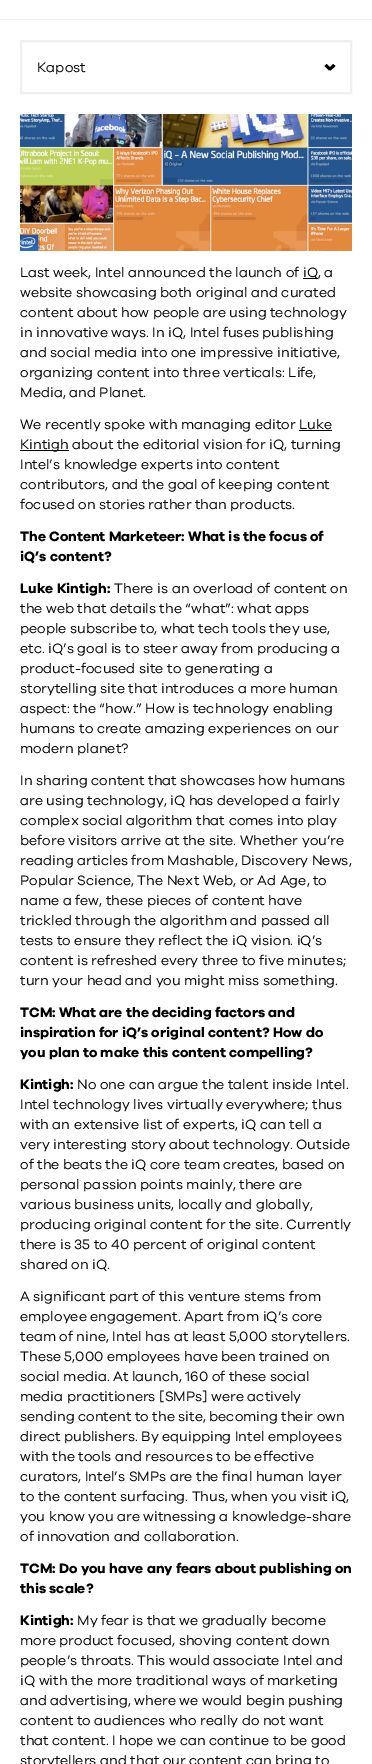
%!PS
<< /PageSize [372 1764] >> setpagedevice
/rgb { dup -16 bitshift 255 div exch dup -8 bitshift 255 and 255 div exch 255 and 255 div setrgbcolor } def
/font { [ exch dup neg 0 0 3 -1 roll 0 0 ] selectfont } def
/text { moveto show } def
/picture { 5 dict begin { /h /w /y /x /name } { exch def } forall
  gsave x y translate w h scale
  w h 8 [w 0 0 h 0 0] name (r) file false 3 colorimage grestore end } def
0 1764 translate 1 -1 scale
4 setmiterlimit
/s1 { /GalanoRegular-Regular 14 font 16#000000 rgb } def
/s2 { /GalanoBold-Bold 14 font 16#000000 rgb } def
16#FFFFFF rgb
0 0 372 1764 rectfill
16#EFEFEF rgb
0 19 372 1 rectfill
16#000000 rgb
328.5 68.5 moveto 333 64 lineto 335.5 66 lineto 330.5 70.5 lineto closepath fill
324.5 66 moveto 326.5 64 lineto 331.5 68.5 lineto 329 70.5 lineto closepath fill
16#EFEFEF rgb
2 setlinewidth
21 41 330 52 rectstroke
s1
(Kapost) 37 72 text
(pic1.raw) 20 114 332 137 picture
(Last week, Intel announced the launch of) 20 277 text
303 278 15 1 rectfill
(iQ, a) 303 277 text
(website showcasing both original and curated) 20 297 text
(content about how people are using technology) 20 317 text
(in innovative ways. In iQ, Intel fuses publishing) 20 337 text
(and social media into one impressive initiative,) 20 357 text
(organizing content into three verticals: Life,) 20 377 text
(Media, and Planet.) 20 397 text
(We recently spoke with managing editor Luke) 20 429 text
20 450 49 1 rectfill
(Kintigh about the editorial vision for iQ, turning) 20 449 text
299 430 33 1 rectfill
(Intel’s knowledge experts into content) 20 469 text
(contributors, and the goal of keeping content) 20 489 text
(focused on stories rather than products.) 20 509 text
s2
(The Content Marketeer: What is the focus of) 20 541 text
(iQ’s content?) 20 561 text
(Luke Kintigh:) 20 593 text
s1
(There is an overload of content on) 114 593 text
(the web that details the “what”: what apps) 20 613 text
(people subscribe to, what tech tools they use,) 20 633 text
(etc. iQ’s goal is to steer away from producing a) 20 653 text
(product-focused site to generating a) 20 673 text
(storytelling site that introduces a more human) 20 693 text
(aspect: the “how.” How is technology enabling) 20 713 text
(humans to create amazing experiences on our) 20 733 text
(modern planet?) 20 753 text
(In sharing content that showcases how humans) 20 785 text
(are using technology, iQ has developed a fairly) 20 805 text
(complex social algorithm that comes into play) 20 825 text
(before visitors arrive at the site. Whether you’re) 20 845 text
(reading articles from Mashable, Discovery News,) 20 865 text
(Popular Science, The Next Web, or Ad Age, to) 20 885 text
(name a few, these pieces of content have) 20 905 text
(trickled through the algorithm and passed all) 20 925 text
(tests to ensure they reflect the iQ vision. iQ’s) 20 945 text
(content is refreshed every three to five minutes;) 20 965 text
(turn your head and you might miss something.) 20 985 text
s2
(TCM: What are the deciding factors and) 20 1017 text
(inspiration for iQ’s original content? How do) 20 1037 text
(you plan to make this content compelling?) 20 1057 text
(Kintigh:) 20 1089 text
s1
(No one can argue the talent inside Intel.) 77 1089 text
(Intel technology lives virtually everywhere; thus) 20 1109 text
(with an extensive list of experts, iQ can tell a) 20 1129 text
(very interesting story about technology. Outside) 20 1149 text
(of the beats the iQ core team creates, based on) 20 1169 text
(personal passion points mainly, there are) 20 1189 text
(various business units, locally and globally,) 20 1209 text
(producing original content for the site. Currently) 20 1229 text
(there is 35 to 40 percent of original content) 20 1249 text
(shared on iQ.) 20 1269 text
(A significant part of this venture stems from) 20 1301 text
(employee engagement. Apart from iQ’s core) 20 1321 text
(team of nine, Intel has at least 5,000 storytellers.) 20 1341 text
(These 5,000 employees have been trained on) 20 1361 text
(social media. At launch, 160 of these social) 20 1381 text
(media practitioners [SMPs] were actively) 20 1401 text
(sending content to the site, becoming their own) 20 1421 text
(direct publishers. By equipping Intel employees) 20 1441 text
(with the tools and resources to be effective) 20 1461 text
(curators, Intel’s SMPs are the final human layer) 20 1481 text
(to the content surfacing. Thus, when you visit iQ,) 20 1501 text
(you know you are witnessing a knowledge-share) 20 1521 text
(of innovation and collaboration.) 20 1541 text
s2
(TCM: Do you have any fears about publishing on) 20 1573 text
(this scale?) 20 1593 text
(Kintigh:) 20 1625 text
s1
(My fear is that we gradually become) 77 1625 text
(more product focused, shoving content down) 20 1645 text
(people’s throats. This would associate Intel and) 20 1665 text
(iQ with the more traditional ways of marketing) 20 1685 text
(and advertising, where we would begin pushing) 20 1705 text
(content to audiences who really do not want) 20 1725 text
(that content. I hope we can continue to be good) 20 1745 text
(storytellers and that our content can bring to) 20 1765 text
showpage
